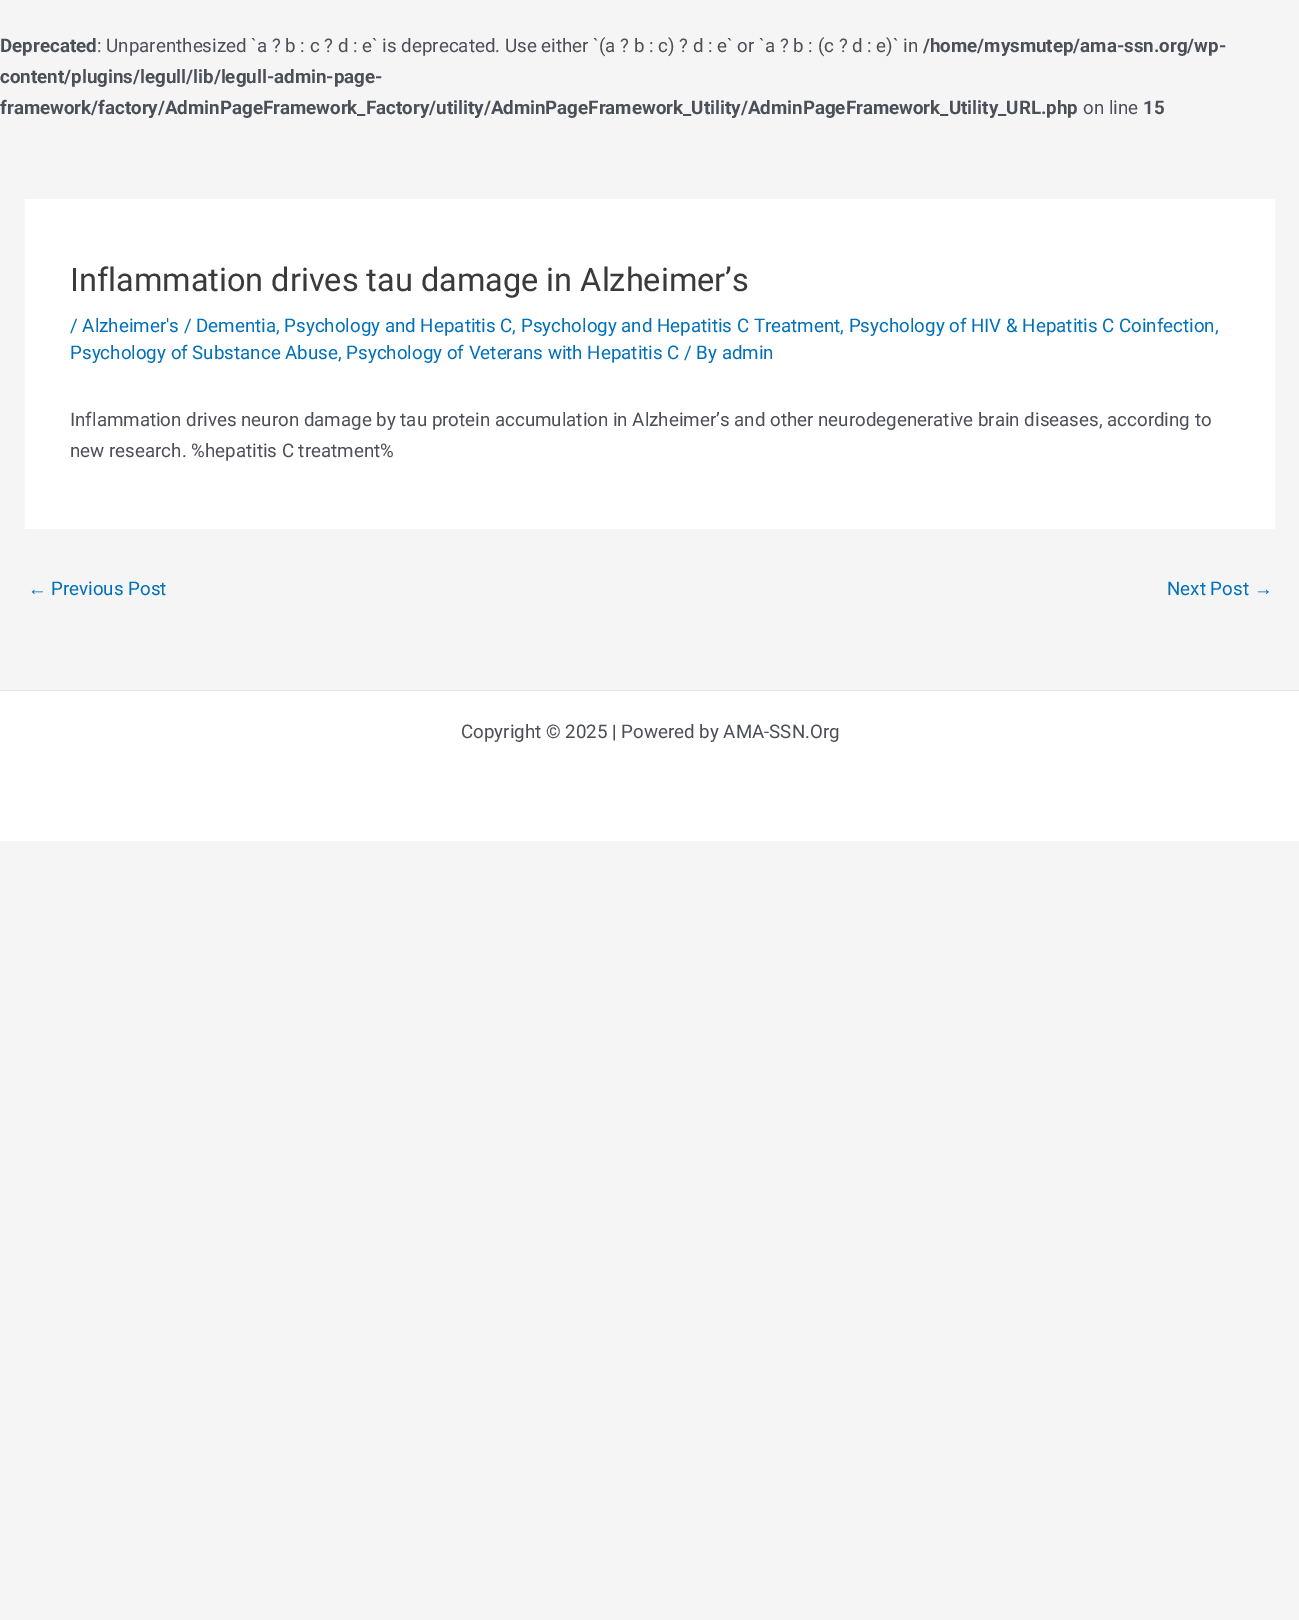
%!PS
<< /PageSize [1299 1620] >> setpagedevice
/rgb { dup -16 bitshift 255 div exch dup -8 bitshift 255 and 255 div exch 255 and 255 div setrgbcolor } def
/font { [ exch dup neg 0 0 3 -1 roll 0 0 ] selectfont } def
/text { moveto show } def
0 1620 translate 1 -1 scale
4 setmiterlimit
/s1 { /Roboto-Bold 18.75 font 16#4B4F58 rgb } def
/s2 { /Roboto-Regular 18.75 font 16#4B4F58 rgb } def
/s3 { /Roboto-Regular 32.5 font 16#3A3A3A rgb } def
/s4 { /Roboto-Regular 18.75 font 16#0170B9 rgb } def
/s5 { /LiberationSans-Regular 18.75 font 16#0170B9 rgb } def
16#F5F5F5 rgb
0 0 1299 1620 rectfill
s1
(Deprecated) 0 52 text
s2
(: Unparenthesized `a ? b : c ? d : e` is deprecated. Use either `\(a ? b : c\) ? d : e` or `a ? b : \(c ? d : e\)` in) 97 52 text
s1
(/home/mysmutep/ama-ssn.org/wp-) 923 52 text
(content/plugins/legull/lib/legull-admin-page-) 0 83 text
(framework/factory/AdminPageFramework_Factory/utility/AdminPageFramework_Utility/AdminPageFramework_Utility_URL.php) 0 114 text
s2
(on line) 1083 114 text
s1
(15) 1143 114 text
16#FFFFFF rgb
25 199 1250 330 rectfill
s3
(Inflammation drives tau damage in Alzheimer’s) 70 291 text
s4
(/ Alzheimer's / Dementia, Psychology and Hepatitis C, Psychology and Hepatitis C Treatment, Psychology of HIV & Hepatitis C Coinfection,) 70 332 text
(Psychology of Substance Abuse, Psychology of Veterans with Hepatitis C / By admin) 70 359 text
s2
(Inflammation drives neuron damage by tau protein accumulation in Alzheimer’s and other neurodegenerative brain diseases, according to) 70 426 text
(new research. %hepatitis C treatment%) 70 457 text
s5
(←) 28 595 text
s4
(Previous Post) 51 595 text
(Next Post) 1167 595 text
s5
(→) 1254 595 text
16#FFFFFF rgb
0 691 1299 150 rectfill
16#E5E5E5 rgb
0 690 1299 1 rectfill
s2
(Copyright © 2025 | Powered by AMA-SSN.Org) 461 738 text
showpage
